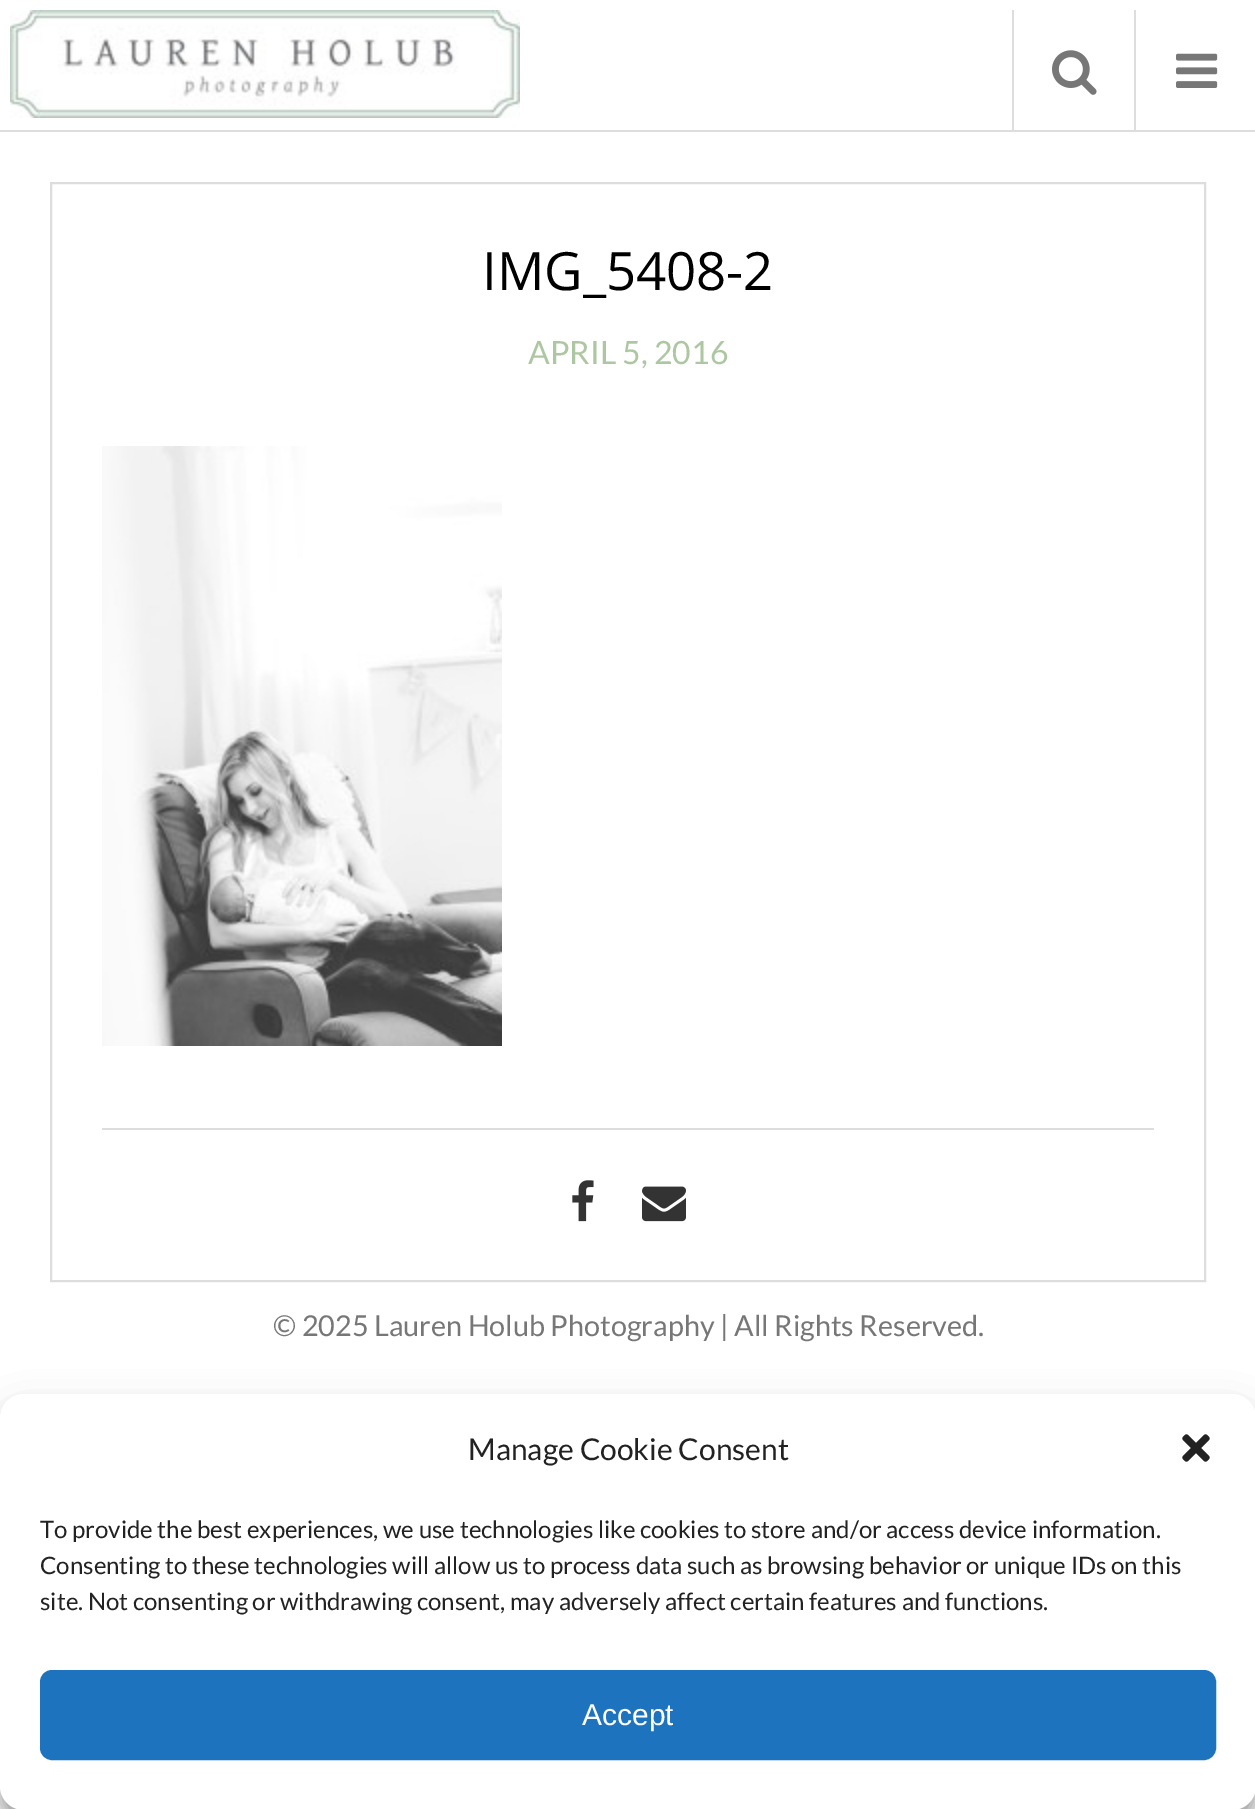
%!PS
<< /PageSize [1255 1809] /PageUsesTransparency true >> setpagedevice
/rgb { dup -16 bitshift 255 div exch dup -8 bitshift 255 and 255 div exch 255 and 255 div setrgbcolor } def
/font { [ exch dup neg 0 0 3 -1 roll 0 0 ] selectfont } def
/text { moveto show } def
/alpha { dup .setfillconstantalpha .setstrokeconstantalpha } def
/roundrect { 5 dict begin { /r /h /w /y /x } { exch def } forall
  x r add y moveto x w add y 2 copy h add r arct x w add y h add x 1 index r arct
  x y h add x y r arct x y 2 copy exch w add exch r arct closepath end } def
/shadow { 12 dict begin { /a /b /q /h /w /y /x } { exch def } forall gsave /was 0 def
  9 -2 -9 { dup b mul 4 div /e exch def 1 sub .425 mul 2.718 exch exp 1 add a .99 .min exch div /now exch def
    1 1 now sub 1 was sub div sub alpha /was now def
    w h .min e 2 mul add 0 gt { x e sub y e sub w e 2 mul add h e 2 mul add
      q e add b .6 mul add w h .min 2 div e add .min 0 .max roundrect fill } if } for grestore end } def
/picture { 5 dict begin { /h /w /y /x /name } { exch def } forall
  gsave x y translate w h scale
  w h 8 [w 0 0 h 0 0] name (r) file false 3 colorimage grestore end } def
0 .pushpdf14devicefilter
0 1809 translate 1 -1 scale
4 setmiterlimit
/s1 { /OpenSans-Regular 52.75 font 16#000000 rgb } def
/s2 { /Lato-Regular 32 font 16#ADC7A2 rgb } def
/s3 { /Lato-Regular 28.8 font 16#777777 rgb } def
/s4 { /Lato-Regular 30 font 16#222222 rgb } def
/s5 { /Lato-Regular 24 font 16#222222 rgb } def
/s6 { /LiberationSans-Regular 30 font 16#FFFFFF rgb } def
16#FFFFFF rgb
0 0 1255 1809 rectfill
16#DDDDDD rgb
0 130 1255 2 rectfill
(pic1.raw) 10 10 510 108 picture
1012 10 2 120 rectfill
(pic2.raw) 1052 50 45 45 picture
1134 10 2 120 rectfill
(pic3.raw) 1176 53 42 35 picture
2 setlinewidth
51 183 1154 1098 rectstroke
s1
(IMG_5408-2) 482 290 text
s2
(APRIL 5, 2016) 528 364 text
(pic4.raw) 102 446 400 600 picture
16#DDDDDD rgb
102 1128 1052 2 rectfill
(pic5.raw) 572 1180 22 42 picture
(pic6.raw) 642 1186 44 36 picture
s3
(© 2025 Lauren Holub Photography | All Rights Reserved.) 273 1336 text
16#000000 rgb
0 1406 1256 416 24 6 0.23 shadow
0 1414 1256 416 24 20 0.19 shadow
16#FFFFFF rgb
0 1394 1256 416 24 roundrect fill
s4
(Manage Cookie Consent) 468 1460 text
(pic7.raw) 1182 1434 28 28 picture
s5
(To provide the best experiences, we use technologies like cookies to store and/or access device information.) 40 1538 text
(Consenting to these technologies will allow us to process data such as browsing behavior or unique IDs on this) 40 1574 text
(site. Not consenting or withdrawing consent, may adversely affect certain features and functions.) 40 1610 text
16#1E73BE rgb
41 1671 1174 88 11 roundrect gsave fill grestore
stroke
s6
(Accept) 582 1725 text
.poppdf14devicefilter showpage
